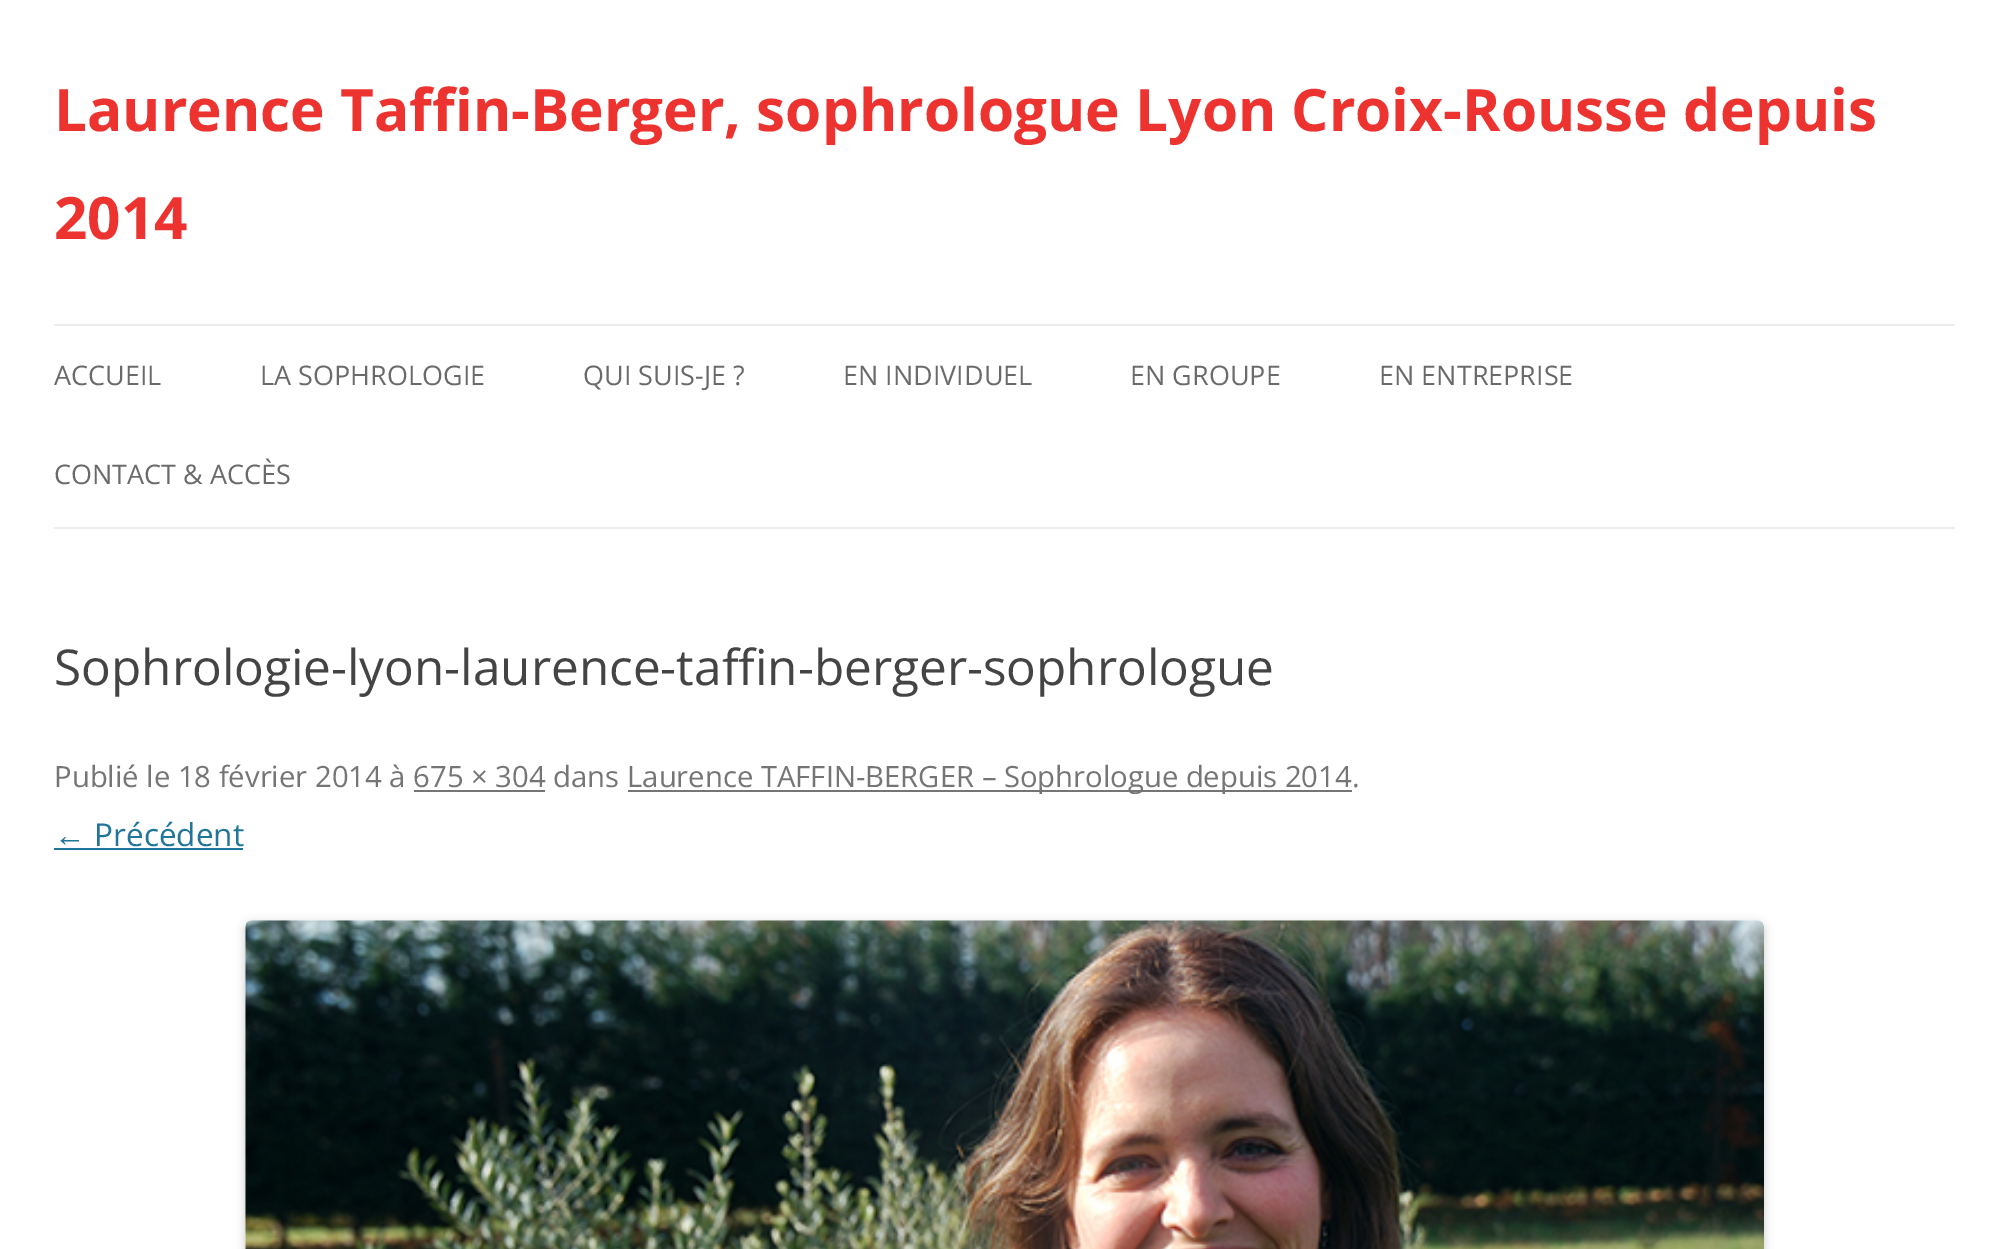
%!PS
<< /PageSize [2009 1249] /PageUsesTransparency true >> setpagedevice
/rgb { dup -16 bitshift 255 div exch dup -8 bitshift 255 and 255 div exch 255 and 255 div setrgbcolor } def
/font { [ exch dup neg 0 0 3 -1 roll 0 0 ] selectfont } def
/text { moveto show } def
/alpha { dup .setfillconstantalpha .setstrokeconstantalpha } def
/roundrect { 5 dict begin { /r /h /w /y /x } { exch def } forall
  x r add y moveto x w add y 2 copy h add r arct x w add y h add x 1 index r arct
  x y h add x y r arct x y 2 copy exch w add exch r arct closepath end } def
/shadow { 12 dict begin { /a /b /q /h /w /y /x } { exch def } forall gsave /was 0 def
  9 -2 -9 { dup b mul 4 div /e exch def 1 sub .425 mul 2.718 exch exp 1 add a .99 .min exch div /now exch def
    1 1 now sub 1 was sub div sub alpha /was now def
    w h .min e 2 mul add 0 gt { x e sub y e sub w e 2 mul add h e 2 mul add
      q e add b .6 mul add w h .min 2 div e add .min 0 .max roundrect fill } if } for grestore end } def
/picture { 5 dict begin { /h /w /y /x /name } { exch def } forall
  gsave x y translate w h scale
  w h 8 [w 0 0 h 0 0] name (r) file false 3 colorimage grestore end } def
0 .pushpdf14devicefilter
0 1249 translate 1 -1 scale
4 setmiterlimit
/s1 { /OpenSans-Bold 58.5 font 16#EC3330 rgb } def
/s2 { /OpenSans-Regular 27 font 16#6A6A6A rgb } def
/s3 { /OpenSans-Regular 49.5 font 16#444444 rgb } def
/s4 { /OpenSans-Regular 29.25 font 16#757575 rgb } def
/s5 { /LiberationSans-Regular 31.5 font 16#21759B rgb } def
/s6 { /OpenSans-Regular 31.5 font 16#21759B rgb } def
16#FFFFFF rgb
0 0 2009 1249 rectfill
s1
(Laurence Taffin-Berger, sophrologue Lyon Croix-Rousse depuis) 54 131 text
(2014) 54 239 text
16#EDEDED rgb
54 324 1901 2 rectfill
54 527 1901 2 rectfill
s2
(ACCUEIL) 54 385 text
(LA SOPHROLOGIE) 260 385 text
(QUI SUIS-JE ?) 583 385 text
(EN INDIVIDUEL) 843 385 text
(EN GROUPE) 1130 385 text
(EN ENTREPRISE) 1379 385 text
(CONTACT & ACCÈS) 54 484 text
s3
(Sophrologie-lyon-laurence-taffin-berger-sophrologue) 54 685 text
s4
(Publié le 18 février 2014 à 675 × 304 dans) 54 787 text
628 790 724 2 rectfill
(Laurence TAFFIN-BERGER – Sophrologue depuis 2014.) 627 787 text
414 790 131 2 rectfill
s5
(←) 54 846 text
54 848 189 2 rectfill
s6
(Précédent) 94 846 text
16#000000 rgb
245 923 1519 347 7 4.5 0.2 shadow
(pic1.raw) 245 920 1519 329 picture
.poppdf14devicefilter showpage
